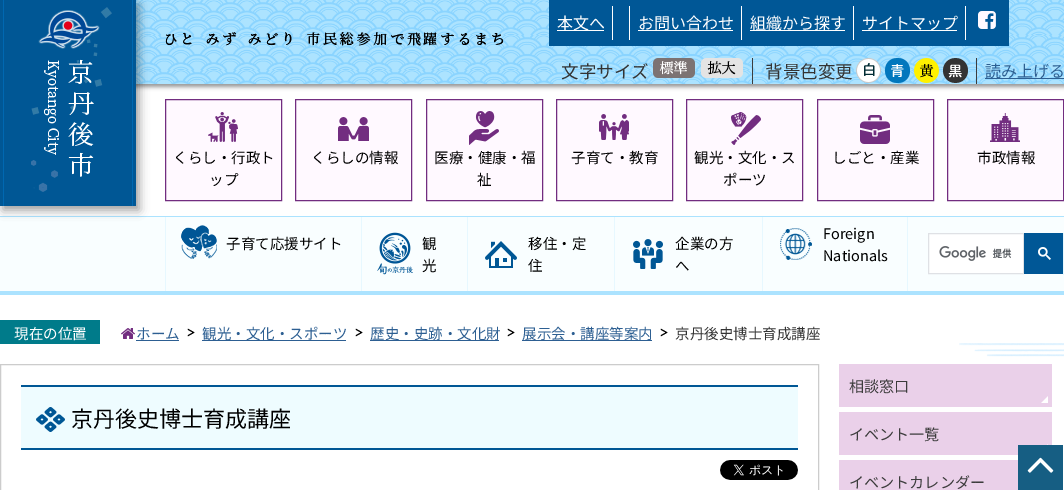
%!PS
<< /PageSize [1064 490] /PageUsesTransparency true >> setpagedevice
/rgb { dup -16 bitshift 255 div exch dup -8 bitshift 255 and 255 div exch 255 and 255 div setrgbcolor } def
/font { [ exch dup neg 0 0 3 -1 roll 0 0 ] selectfont } def
/text { moveto show } def
/alpha { dup .setfillconstantalpha .setstrokeconstantalpha } def
/roundrect { 5 dict begin { /r /h /w /y /x } { exch def } forall
  x r add y moveto x w add y 2 copy h add r arct x w add y h add x 1 index r arct
  x y h add x y r arct x y 2 copy exch w add exch r arct closepath end } def
/shadow { 12 dict begin { /a /b /q /h /w /y /x } { exch def } forall gsave /was 0 def
  9 -2 -9 { dup b mul 4 div /e exch def 1 sub .425 mul 2.718 exch exp 1 add a .99 .min exch div /now exch def
    1 1 now sub 1 was sub div sub alpha /was now def
    w h .min e 2 mul add 0 gt { x e sub y e sub w e 2 mul add h e 2 mul add
      q e add b .6 mul add w h .min 2 div e add .min 0 .max roundrect fill } if } for grestore end } def
/picture { 5 dict begin { /h /w /y /x /name } { exch def } forall
  gsave x y translate w h scale
  w h 8 [w 0 0 h 0 0] name (r) file false 3 colorimage grestore end } def
0 .pushpdf14devicefilter
0 490 translate 1 -1 scale
4 setmiterlimit
/s1 { /NotoSansCJKJP-Regular 16 font 16#FFFFFF rgb } def
/s2 { /NotoSansCJKJP-Regular 17.5 font 16#333333 rgb } def
/s3 { /NotoSansCJKJP-Regular 16 font 16#2D5F92 rgb } def
/s4 { /NotoSansCJKJP-Regular 14.5 font 16#000000 rgb } def
/s5 { /NotoSansCJKJP-Regular 14.5 font 16#FFFFFF rgb } def
/s6 { /NotoSansCJKJP-Regular 14.5 font 16#2D5F92 rgb } def
/s7 { /NotoSansCJKJP-Regular 14.5 font 16#333333 rgb } def
/s8 { /NotoSansCJKJP-Regular 22 font 16#000000 rgb } def
/s9 { /NotoSansCJKJP-Regular 15.1 font 16#3C3C3C rgb } def
16#FFFFFF rgb
0 0 1064 490 rectfill
(pic1.raw) 959 343 105 14 picture
16#000000 rgb
0 1 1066 86 0 2 0.4 shadow
(pic2.raw) 136 0 928 84 picture
16#F9FEFF rgb
0 217 1064 74 rectfill
16#ACE3FF rgb
0 216 1064 1 rectfill
16#000000 rgb
3 4 136 206 0 5 0.4 shadow
(pic3.raw) 0 0 136 206 picture
(pic4.raw) 165 32 339 14 picture
16#005796 rgb
549 0 460 46 rectfill
16#FFFFFF rgb
557 30 47 1 rectfill
s1
(本文へ) 557 29 text
612 6 1 34 rectfill
629 6 1 34 rectfill
638 30 95 1 rectfill
(お問い合わせ) 638 29 text
741 6 1 34 rectfill
750 30 95 1 rectfill
(組織から探す) 750 29 text
853 6 1 34 rectfill
862 30 95 1 rectfill
(サイトマップ) 862 29 text
965 6 1 34 rectfill
(pic5.raw) 978 11 18 18 picture
s2
(文字サイズ) 561 78 text
(pic6.raw) 653 58 42 20 picture
(pic7.raw) 701 58 42 20 picture
16#3C3C3C rgb
752 58 1 26 rectfill
s2
(背景色変更) 765 78 text
(pic8.raw) 856 58 25 25 picture
(pic9.raw) 885 58 25 25 picture
(pic10.raw) 914 58 25 25 picture
(pic11.raw) 943 58 25 25 picture
16#3C3C3C rgb
976 58 1 26 rectfill
16#2D5F92 rgb
985 78 79 1 rectfill
s3
(読み上げる) 985 77 text
16#FFF9FF rgb
165.5 99.5 moveto 281.5 99.5 lineto 281.5 200.5 lineto 165.5 200.5 lineto closepath gsave fill grestore
16#722D80 rgb
stroke
(pic12.raw) 208 112 30 30 picture
s4
(くらし・行政ト) 173 163 text
(ップ) 209 185 text
16#FFF9FF rgb
295.5 99.5 moveto 411.5 99.5 lineto 411.5 200.5 lineto 295.5 200.5 lineto closepath gsave fill grestore
16#722D80 rgb
stroke
(pic13.raw) 338 117 31 24 picture
s4
(くらしの情報) 311 163 text
16#FFF9FF rgb
426.5 99.5 moveto 542.5 99.5 lineto 542.5 200.5 lineto 426.5 200.5 lineto closepath gsave fill grestore
16#722D80 rgb
stroke
(pic14.raw) 469 111 30 34 picture
s4
(医療・健康・福) 434 163 text
(祉) 477 185 text
16#FFF9FF rgb
556.5 99.5 moveto 672.5 99.5 lineto 672.5 200.5 lineto 556.5 200.5 lineto closepath gsave fill grestore
16#722D80 rgb
stroke
(pic15.raw) 599 114 30 26 picture
s4
(子育て・教育) 571 163 text
16#FFF9FF rgb
686.5 99.5 moveto 802.5 99.5 lineto 802.5 200.5 lineto 686.5 200.5 lineto closepath gsave fill grestore
16#722D80 rgb
stroke
(pic16.raw) 731 112 30 33 picture
s4
(観光・文化・ス) 694 163 text
(ポーツ) 723 185 text
16#FFF9FF rgb
817.5 99.5 moveto 933.5 99.5 lineto 933.5 200.5 lineto 817.5 200.5 lineto closepath gsave fill grestore
16#722D80 rgb
stroke
(pic17.raw) 860 115 30 29 picture
s4
(しごと・産業) 832 163 text
16#FFF9FF rgb
947.5 99.5 moveto 1063.5 99.5 lineto 1063.5 200.5 lineto 947.5 200.5 lineto closepath gsave fill grestore
16#722D80 rgb
stroke
(pic18.raw) 990 113 30 29 picture
s4
(市政情報) 977 163 text
16#ACE3FF rgb
0 291 1064 4 rectfill
16#E7F8FF rgb
361 217 1 74 rectfill
165 217 1 74 rectfill
(pic19.raw) 181 225 36 34 picture
s4
(子育て応援サイト) 226 249 text
16#E7F8FF rgb
467 217 1 74 rectfill
(pic20.raw) 377 232 36 43 picture
s4
(観) 422 249 text
(光) 422 271 text
16#E7F8FF rgb
614 217 1 74 rectfill
(pic21.raw) 485 241 32 27 picture
s4
(移住・定) 528 249 text
(住) 528 271 text
16#E7F8FF rgb
762 217 1 74 rectfill
(pic22.raw) 633 239 30 30 picture
s4
(企業の方) 675 249 text
(へ) 675 271 text
16#E7F8FF rgb
907 217 1 74 rectfill
(pic23.raw) 780 228 32 32 picture
s4
(Foreign) 823 239 text
(Nationals) 823 261 text
16#E7F8FF rgb
1063 233 1 42 rectfill
16#FFFFFF rgb
928.5 233.5 moveto 1023.5 233.5 lineto 1023.5 273.5 lineto 928.5 273.5 lineto closepath gsave fill grestore
16#DFE1E5 rgb
stroke
(pic24.raw) 939 246 73 15 picture
16#005796 rgb
1024 233 39 41 rectfill
(pic25.raw) 1038 247 13 13 picture
16#007B8A rgb
0 320 100 24 rectfill
s5
(現在の位置) 14 339 text
(pic26.raw) 121 328 14 11 picture
s6
(ホーム) 136 339 text
136 340 43 1 rectfill
(pic27.raw) 187 328 8 9 picture
202 340 144 1 rectfill
(観光・文化・スポーツ) 202 339 text
(pic27.raw) 355 328 8 9 picture
370 340 129 1 rectfill
(歴史・史跡・文化財) 370 339 text
(pic27.raw) 507 328 8 9 picture
522 340 130 1 rectfill
(展示会・講座等案内) 522 339 text
(pic27.raw) 660 328 8 9 picture
s7
(京丹後史博士育成講座) 675 339 text
16#CCCCCC rgb
0.5 364.5 818 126 rectstroke
16#EEFCFF rgb
21 387 777 61 rectfill
16#005795 rgb
21 385 777 2 rectfill
21 448 777 2 rectfill
(pic28.raw) 36 407 29 25 picture
s8
(京丹後史博士育成講座) 71 427 text
(pic29.raw) 720 460 78 20 picture
16#EAD0E9 rgb
839 364 213 43 rectfill
(pic30.raw) 1041 396 7 7 picture
s9
(相談窓口) 849 392 text
16#EAD0E9 rgb
839 412 213 43 rectfill
(pic31.raw) 1047 444 1 1 picture
s9
(イベント一覧) 849 440 text
16#EAD0E9 rgb
839 460 179 30 rectfill
s9
(イベントカレンダー) 849 488 text
(pic32.raw) 1018 445 45 45 picture
.poppdf14devicefilter showpage
